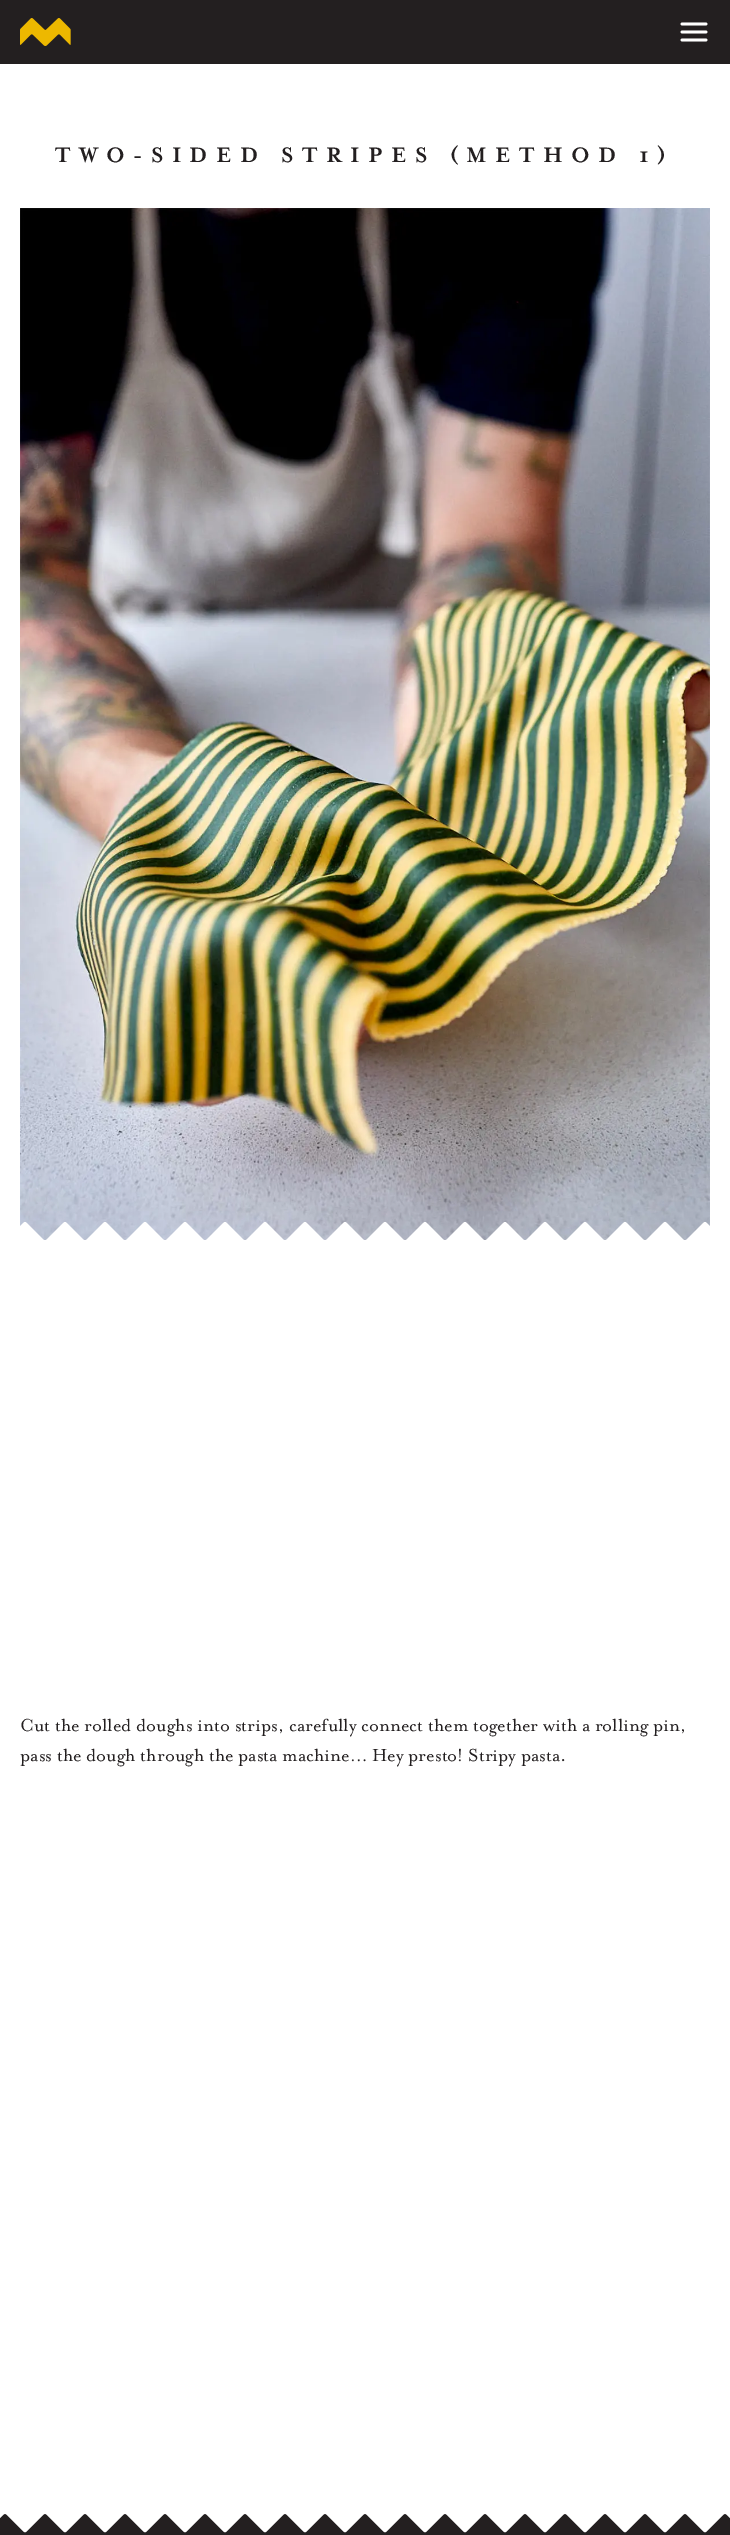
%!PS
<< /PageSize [730 2535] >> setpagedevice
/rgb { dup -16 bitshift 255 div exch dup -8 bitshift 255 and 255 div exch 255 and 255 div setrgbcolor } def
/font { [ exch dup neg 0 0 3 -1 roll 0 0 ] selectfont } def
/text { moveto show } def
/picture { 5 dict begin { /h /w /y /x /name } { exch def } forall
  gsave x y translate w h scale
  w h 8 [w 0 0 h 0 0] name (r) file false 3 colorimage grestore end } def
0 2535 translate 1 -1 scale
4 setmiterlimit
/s1 { /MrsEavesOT-Regular 20 font 16#231F20 rgb } def
16#FFFFFF rgb
0 0 730 2535 rectfill
16#231F20 rgb
0 0 730 64 rectfill
(pic1.raw) 20 18 51 28 picture
16#FFFFFF rgb
2.7 setlinewidth
1 setlinecap
1 setlinejoin
682 24 moveto 706 24 lineto 682 32 moveto 706 32 lineto 682 40 moveto 706 40 lineto stroke
/MrsEavesOT-Bold 24 font
16#231F20 rgb
55 162 moveto 8.4 0 (TWO-SIDED STRIPES \(METHOD 1\)) ashow
(pic2.raw) 20 208 690 1032 picture
(pic3.raw) 20 1221 690 19 picture
s1
(Cut the rolled doughs into strips, carefully connect them together with a rolling pin,) 20 1731 text
(pass the dough through the pasta machine… Hey presto! Stripy pasta.) 20 1761 text
(pic4.raw) 0 2514 730 21 picture
showpage
